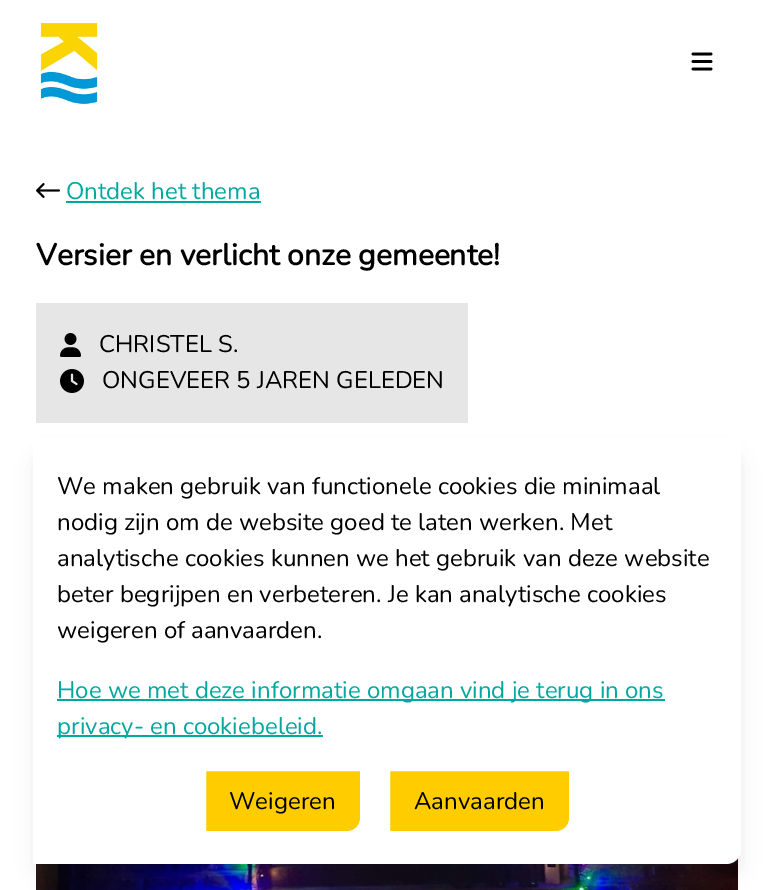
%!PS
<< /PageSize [774 890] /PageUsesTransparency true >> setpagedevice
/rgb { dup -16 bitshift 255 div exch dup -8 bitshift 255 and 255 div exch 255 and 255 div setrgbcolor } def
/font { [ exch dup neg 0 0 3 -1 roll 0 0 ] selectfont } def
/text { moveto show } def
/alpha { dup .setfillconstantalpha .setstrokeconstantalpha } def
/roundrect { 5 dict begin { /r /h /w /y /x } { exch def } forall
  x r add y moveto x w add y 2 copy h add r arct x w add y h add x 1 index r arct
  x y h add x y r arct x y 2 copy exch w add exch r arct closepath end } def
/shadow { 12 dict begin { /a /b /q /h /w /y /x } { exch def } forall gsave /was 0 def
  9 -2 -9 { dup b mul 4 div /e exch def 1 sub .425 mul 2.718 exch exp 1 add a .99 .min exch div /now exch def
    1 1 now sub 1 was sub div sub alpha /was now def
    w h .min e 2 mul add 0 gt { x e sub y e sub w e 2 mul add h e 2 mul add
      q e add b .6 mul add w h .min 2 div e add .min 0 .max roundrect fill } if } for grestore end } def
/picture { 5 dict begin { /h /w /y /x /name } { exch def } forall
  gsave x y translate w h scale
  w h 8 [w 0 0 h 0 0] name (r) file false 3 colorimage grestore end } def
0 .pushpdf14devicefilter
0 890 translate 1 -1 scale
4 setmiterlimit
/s1 { /Nunito-ExtraLight 24 font 16#00A89F rgb } def
/s2 { /Nunito-Bold 30 font 16#000000 rgb } def
/s3 { /Nunito-ExtraLight 24 font 16#000000 rgb } def
16#FFFFFF rgb
0 0 774 890 rectfill
(pic1.raw) 40 23 58 81 picture
(pic2.raw) 691 52 22 19 picture
(pic3.raw) 36 183 24 15 picture
s1
(Ontdek het thema) 66 199 text
66 201 195 2 rectfill
s2
(Versier en verlicht onze gemeente!) 36 265 text
16#E6E6E6 rgb
36 303 432 120 rectfill
(pic4.raw) 60 333 21 24 picture
s3
(CHRISTEL S.) 99 352 text
(pic5.raw) 60 369 24 24 picture
(ONGEVEER 5 JAREN GELEDEN) 102 388 text
(pic6.raw) 36 858 702 32 picture
39 450 696 414 9 4.5 0.1 shadow
38 458 699 417 11 11 0.1 shadow
16#FFFFFF rgb
33 438 moveto 741 438 lineto 741 849 lineto 741 857.5 734.5 864 726 864 curveto 33 864 lineto closepath fill
s3
(We maken gebruik van functionele cookies die minimaal) 57 494 text
(nodig zijn om de website goed te laten werken. Met) 57 530 text
(analytische cookies kunnen we het gebruik van deze website) 57 566 text
(beter begrijpen en verbeteren. Je kan analytische cookies) 57 602 text
(weigeren of aanvaarden.) 57 638 text
16#00A89F rgb
57 699 608 2 rectfill
(Hoe we met deze informatie omgaan vind je terug in ons) 57 698 text
57 735 266 2 rectfill
(privacy- en cookiebeleid.) 57 734 text
16#FFCC00 rgb
204.5 769.5 moveto 361.5 769.5 lineto 361.5 819 lineto 361.5 826.5 355.5 832.5 348 832.5 curveto 204.5 832.5 lineto closepath gsave fill grestore
16#FFFFFF rgb
3 setlinewidth
stroke
s3
(Weigeren) 229 809 text
16#FFCC00 rgb
388.5 769.5 moveto 570.5 769.5 lineto 570.5 819 lineto 570.5 826.5 564.5 832.5 557 832.5 curveto 388.5 832.5 lineto closepath gsave fill grestore
16#FFFFFF rgb
stroke
s3
(Aanvaarden) 414 809 text
.poppdf14devicefilter showpage
